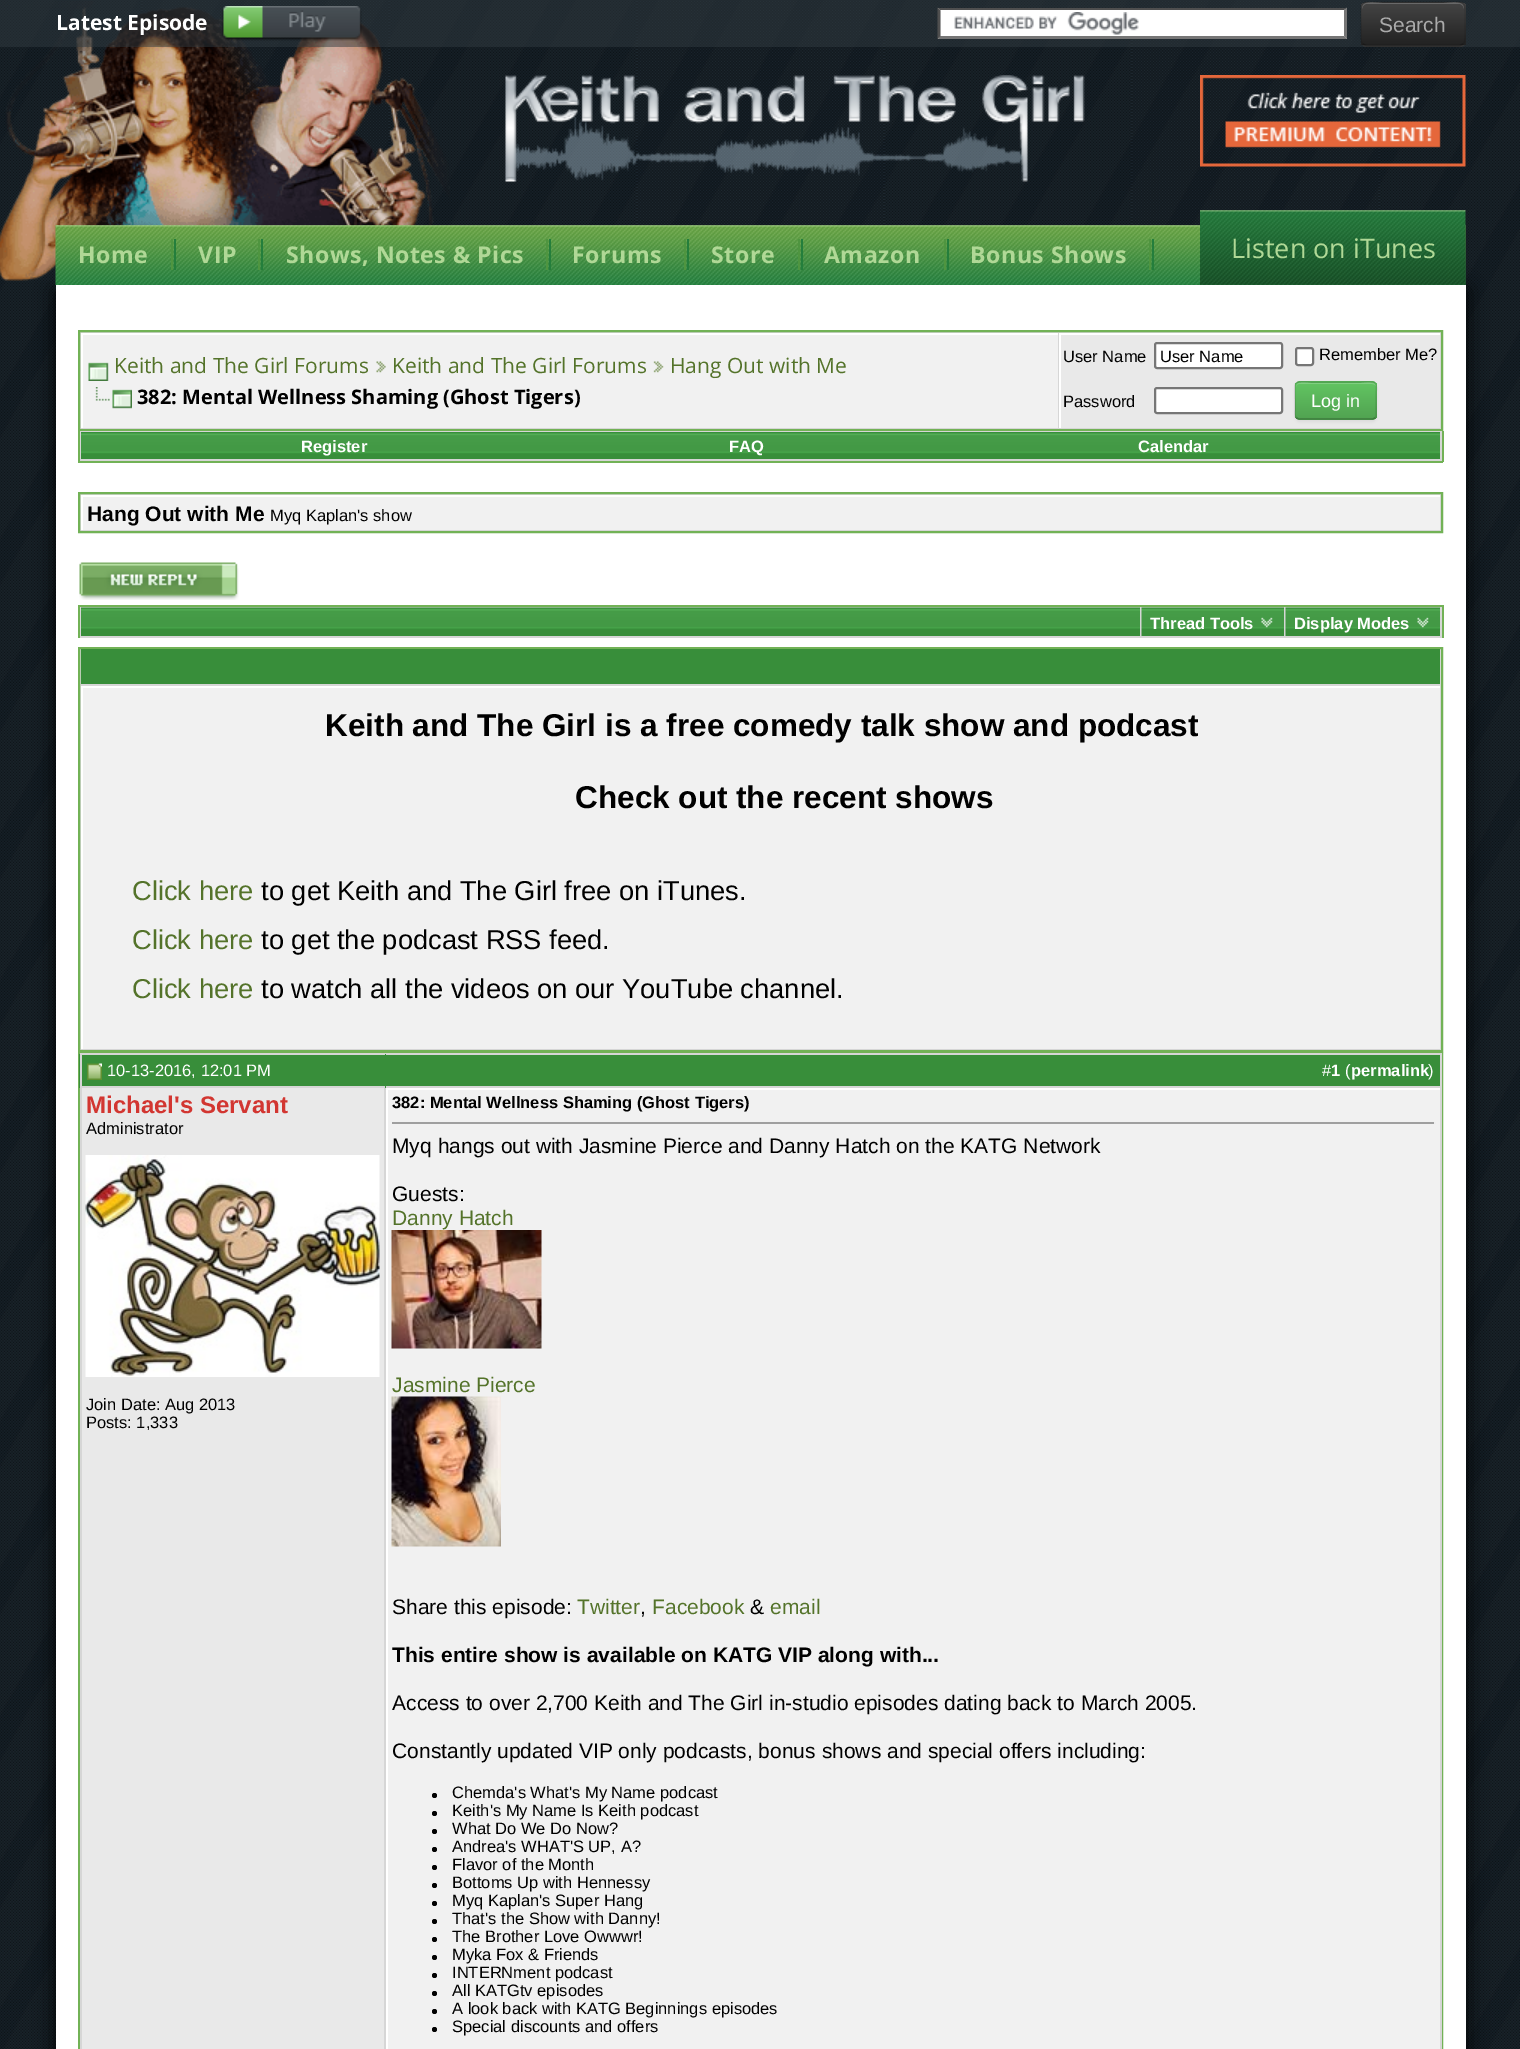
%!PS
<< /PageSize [1520 2049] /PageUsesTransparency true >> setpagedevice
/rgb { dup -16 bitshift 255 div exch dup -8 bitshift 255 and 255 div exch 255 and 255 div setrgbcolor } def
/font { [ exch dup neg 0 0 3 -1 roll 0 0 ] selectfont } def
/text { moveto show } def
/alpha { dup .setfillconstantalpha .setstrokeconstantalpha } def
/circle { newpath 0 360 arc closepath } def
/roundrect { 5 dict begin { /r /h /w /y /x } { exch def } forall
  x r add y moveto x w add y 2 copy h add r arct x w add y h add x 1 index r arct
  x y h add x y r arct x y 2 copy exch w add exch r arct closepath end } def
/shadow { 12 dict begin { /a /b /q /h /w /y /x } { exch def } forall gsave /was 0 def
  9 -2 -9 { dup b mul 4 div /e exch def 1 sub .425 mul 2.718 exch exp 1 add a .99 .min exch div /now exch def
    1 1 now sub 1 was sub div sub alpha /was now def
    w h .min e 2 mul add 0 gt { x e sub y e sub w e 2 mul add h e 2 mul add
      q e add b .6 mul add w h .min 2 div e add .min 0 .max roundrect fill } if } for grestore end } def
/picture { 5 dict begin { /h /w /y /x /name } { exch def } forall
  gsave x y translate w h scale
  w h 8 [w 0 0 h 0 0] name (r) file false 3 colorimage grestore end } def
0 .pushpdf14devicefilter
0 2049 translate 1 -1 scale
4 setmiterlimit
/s1 { /OpenSans-Bold 21 font 16#FFFFFF rgb } def
/s2 { /LiberationSans-Regular 21 font 16#AAAAAA rgb } def
/s3 { /OpenSans-Regular 27 font 16#B0D896 rgb } def
/s4 { /OpenSans-Regular 21 font 16#54732A rgb } def
/s5 { /OpenSans-Bold 20 font 16#000000 rgb } def
/s6 { /LiberationSans-Regular 16.5 font 16#000000 rgb } def
/s7 { /LiberationSans-Regular 18 font 16#FFFFFF rgb } def
/s8 { /LiberationSans-Bold 16.5 font 16#FFFFFF rgb } def
/s9 { /LiberationSans-Bold 21 font 16#000000 rgb } def
/s10 { /LiberationSans-Bold 31.5 font 16#000000 rgb } def
/s11 { /LiberationSans-Regular 27.3 font 16#54732A rgb } def
/s12 { /LiberationSans-Regular 27.3 font 16#000000 rgb } def
/s13 { /LiberationSans-Regular 16.5 font 16#FFFFFF rgb } def
/s14 { /LiberationSans-Bold 24 font 16#D23631 rgb } def
/s15 { /LiberationSans-Bold 16.5 font 16#000000 rgb } def
/s16 { /LiberationSans-Regular 21 font 16#000000 rgb } def
/s17 { /LiberationSans-Regular 21 font 16#54732A rgb } def
16#FFFFFF rgb
0 0 1520 2049 rectfill
(pic1.raw) 0 0 1520 2049 picture
16#000000 rgb
56 290 1410 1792 0 11 1 shadow
(pic4.raw) 0 1 450 280 picture
0.5 alpha
16#303A40 rgb
0 0 1520 47 rectfill
1 alpha
s1
(Latest Episode) 56 30 text
(pic2.raw) 222 6 140 35 picture
938 8 409 31 rectfill
(pic3.raw) 954 12 185 23 picture
16#4F4F4F rgb
938 8 moveto 1347 8 lineto 1344 10 lineto 940 10 lineto closepath fill
16#767676 rgb
1347 7.5 moveto 1347 39 lineto 1344 36 lineto 1344 10.5 lineto closepath fill
1347 39 moveto 938 39 lineto 940 36 lineto 1344 36 lineto closepath fill
16#4F4F4F rgb
937.5 39 moveto 937.5 7.5 lineto 940.5 10.5 lineto 940.5 36 lineto closepath fill
16#363636 rgb
1361 2 105 45 6 roundrect fill
gsave
1361 2 105 45 6 roundrect clip newpath
gsave 1361 3 moveto 1466 3 lineto 1466 45 lineto 1361 45 lineto closepath clip newpath
<< /ShadingType 2 /ColorSpace /DeviceRGB /Coords [1413 3 1413 45] /Extend [true true] /Function << /FunctionType 2 /Domain [0 1] /C0 [0.267 0.267 0.267] /C1 [0.133 0.133 0.133] /N 1 >> >> shfill grestore
grestore
0.2 alpha
16#FFFFFF rgb
1366 4 moveto 1460 4 lineto 1462 4 1464 7 1464 9 curveto 1464 -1 1449 3 1444 3 curveto 1382 3 lineto 1377 3 1362 -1 1362 9 curveto 1362 7 1364 4 1366 4 curveto closepath fill
0.25 alpha
16#000000 rgb
1.5 setlinewidth
1463 44 moveto 1460 45.5 lineto 1366 45.5 lineto 1363 44 lineto stroke
0.1 alpha
1363 44 moveto 1360.5 42 1361 38 1361 35 curveto 1361 24 lineto 1361 0 1357.5 2 1382 2 curveto 1444 2 lineto 1468.5 2 1465 0 1465 24 curveto 1465 35 lineto 1465 38 1465.5 42 1463 44 curveto stroke
1 alpha
s2
(Search) 1379 32 text
(pic5.raw) 505 75 580 107 picture
(pic6.raw) 1200 75 266 92 picture
(pic7.raw) 55 225 1411 60 picture
/OpenSans-Bold 23.1 font
16#B0D896 rgb
78 263 moveto 0.5 0 (Home) ashow
16#247E3C rgb
174 239 2 31 rectfill
16#4F9540 rgb
171 239 2 31 rectfill
16#B0D896 rgb
198 263 moveto 0.5 0 (VIP) ashow
16#247E3C rgb
261 239 2 31 rectfill
16#4F9540 rgb
258 239 2 31 rectfill
16#B0D896 rgb
286 263 moveto 0.5 0 (Shows, Notes & Pics) ashow
16#247E3C rgb
549 239 2 31 rectfill
16#4F9540 rgb
546 239 2 31 rectfill
16#B0D896 rgb
572 263 moveto 0.5 0 (Forums) ashow
16#247E3C rgb
687 239 2 31 rectfill
16#4F9540 rgb
684 239 2 31 rectfill
16#B0D896 rgb
711 263 moveto 0.5 0 (Store) ashow
16#247E3C rgb
801 239 2 31 rectfill
16#4F9540 rgb
798 239 2 31 rectfill
16#B0D896 rgb
824 263 moveto 0.5 0 (Amazon) ashow
16#247E3C rgb
947 239 2 31 rectfill
16#4F9540 rgb
944 239 2 31 rectfill
16#B0D896 rgb
970 263 moveto 0.5 0 (Bonus Shows) ashow
16#247E3C rgb
1152 239 2 31 rectfill
16#4F9540 rgb
1149 239 2 31 rectfill
(pic8.raw) 1200 210 266 75 picture
s3
(Listen on iTunes) 1231 258 text
16#FFFFFF rgb
56 285 1410 1764 rectfill
16#D6D6D6 rgb
79 331 moveto 1442 331 lineto 1442 430 lineto 79 430 lineto closepath gsave fill grestore
16#72B256 rgb
2 setlinewidth
stroke
16#F1F1F1 rgb
83 335 975 93 rectfill
16#FFFFFF rgb
81 333 977 2 rectfill
81 333 2 95 rectfill
(pic9.raw) 88 362 21 19 picture
s4
(Keith and The Girl Forums) 114 373 text
(pic10.raw) 376 361 10 12 picture
(Keith and The Girl Forums) 392 373 text
(pic11.raw) 653 361 11 12 picture
(Hang Out with Me) 670 373 text
(pic12.raw) 95 387 37 22 picture
s5
(382: Mental Wellness Shaming \(Ghost Tigers\)) 137 404 text
16#E9E9E9 rgb
1061 335 379 93 rectfill
16#FFFFFF rgb
1059 333 381 2 rectfill
1059 333 2 95 rectfill
s6
(User Name) 1063 362 text
16#FFFFFF rgb
1155 343 127 25 2 roundrect gsave fill grestore
16#767676 rgb
stroke
s6
(User Name) 1160 362 text
16#FFFFFF rgb
1296 348 17 17 2 roundrect gsave fill grestore
16#767676 rgb
stroke
s6
(Remember Me?) 1319 360 text
(Password) 1063 407 text
16#FFFFFF rgb
1155 388 127 25 2 roundrect gsave fill grestore
16#767676 rgb
stroke
16#000000 rgb
1295 383 82 39 5 1.5 0.05 shadow
16#5BB75B rgb
1295 381 82 39 5 roundrect fill
gsave
1295 381 82 39 5 roundrect clip newpath
gsave 1295 383 moveto 1377 383 lineto 1377 419 lineto 1295 419 lineto closepath clip newpath
<< /ShadingType 2 /ColorSpace /DeviceRGB /Coords [1336 383 1336 419] /Extend [true true] /Function << /FunctionType 2 /Domain [0 1] /C0 [0.384 0.769 0.384] /C1 [0.318 0.639 0.318] /N 1 >> >> shfill grestore
grestore
0.2 alpha
16#FFFFFF rgb
1299 384 moveto 1372 384 lineto 1374 384 1376 385 1376 387 curveto 1376 380 1365 383 1361 383 curveto 1311 383 lineto 1307 383 1296 380 1296 387 curveto 1296 385 1297 384 1299 384 curveto closepath fill
0.25 alpha
16#000000 rgb
1.5 setlinewidth
1375 418 moveto 1373 419 lineto 1298.5 419 lineto 1296.5 418 lineto stroke
0.1 alpha
1296.5 418 moveto 1294.5 416.5 1295 412.5 1295 410.5 curveto 1295 400.5 lineto 1295 380 1291.5 382 1311 382 curveto 1360 382 lineto 1380 382 1376 380 1376 400.5 curveto 1376 410.5 lineto 1376 412.5 1377 416.5 1375 418 curveto stroke
1 alpha
s7
(Log in) 1311 407 text
16#D6D6D6 rgb
80 431 1362 30 rectfill
16#72B256 rgb
1442 431 2 31 rectfill
78 461 1365 2 rectfill
78 431 2 31 rectfill
(pic13.raw) 81 432 507 27 picture
s8
(Register) 301 452 text
(pic14.raw) 588 432 318 27 picture
(FAQ) 729 452 text
(pic15.raw) 906 432 534 27 picture
(Calendar) 1138 452 text
16#D6D6D6 rgb
79 493 moveto 1442 493 lineto 1442 532 lineto 79 532 lineto closepath gsave fill grestore
16#72B256 rgb
2 setlinewidth
stroke
16#F1F1F1 rgb
83 497 1357 33 rectfill
16#FFFFFF rgb
81 495 1359 2 rectfill
81 495 2 35 rectfill
s9
(Hang Out with Me) 87 521 text
s6
(Myq Kaplan's show) 270 521 text
(pic16.raw) 79 562 160 38 picture
16#D6D6D6 rgb
80 607 1362 31 rectfill
16#72B256 rgb
78 605 1365 2 rectfill
1442 605 2 33 rectfill
78 605 2 33 rectfill
(pic17.raw) 81 607 1059 29 picture
(pic18.raw) 1141 607 143 29 picture
s8
(Thread Tools) 1150 629 text
(pic19.raw) 1261 617 12 11 picture
(pic20.raw) 1285 607 155 29 picture
(Display Modes) 1294 629 text
(pic21.raw) 1417 617 12 11 picture
16#D6D6D6 rgb
79 648 moveto 1442 648 lineto 1442 1051 lineto 79 1051 lineto closepath gsave fill grestore
16#72B256 rgb
stroke
16#388E3A rgb
81 649 1359 35 rectfill
16#F1F1F1 rgb
83 688 1357 361 rectfill
16#FFFFFF rgb
81 686 1359 2 rectfill
81 686 2 363 rectfill
s10
(Keith and The Girl is a free comedy talk show and podcast) 325 736 text
(Check out the recent shows) 575 808 text
s11
(Click here) 132 900 text
s12
(to get Keith and The Girl free on iTunes.) 261 900 text
s11
(Click here) 132 949 text
s12
(to get the podcast RSS feed.) 261 949 text
s11
(Click here) 132 998 text
s12
(to watch all the videos on our YouTube channel.) 261 998 text
16#72B256 rgb
79 1053 1363 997 rectstroke
16#388E3A rgb
79 1054 306 34 rectfill
16#D6D6D6 rgb
80 1053 306 2 rectfill
80 1086 306 2 rectfill
80 1053 2 996 rectfill
(pic22.raw) 87 1063 15 17 picture
s13
(10-13-2016, 12:01 PM) 107 1076 text
16#388E3A rgb
385 1054 1055 34 rectfill
16#D6D6D6 rgb
386 1053 1056 2 rectfill
1440 1053 2 35 rectfill
386 1086 1056 2 rectfill
s13
(#) 1322 1076 text
s8
(1) 1331 1076 text
s13
(\() 1345 1076 text
s8
(permalink) 1351 1076 text
s13
(\)) 1428 1076 text
16#E9E9E9 rgb
82 1088 302 961 rectfill
16#D6D6D6 rgb
384 1088 2 961 rectfill
s14
(Michael's Servant) 86 1113 text
s6
(Administrator) 86 1134 text
(pic23.raw) 85 1155 295 222 picture
(Join Date: Aug 2013) 86 1410 text
(Posts: 1,333) 86 1428 text
16#F1F1F1 rgb
388 1090 1052 959 rectfill
16#FFFFFF rgb
1441 1088 1 2 rectfill
16#D6D6D6 rgb
1440 1088 2 961 rectfill
s15
(382: Mental Wellness Shaming \(Ghost Tigers\)) 392 1108 text
16#9F9F9F rgb
392 1122 1044 2 rectfill
16#EEEEEE rgb
1434 1122 2 2 rectfill
s16
(Myq hangs out with Jasmine Pierce and Danny Hatch on the KATG Network) 392 1153 text
(Guests:) 392 1201 text
s17
(Danny Hatch) 392 1225 text
(pic24.raw) 391 1230 151 119 picture
(Jasmine Pierce) 392 1392 text
(pic25.raw) 391 1396 110 151 picture
s16
(Share this episode:) 392 1614 text
s17
(Twitter) 577 1614 text
s16
(,) 640 1614 text
s17
(Facebook) 652 1614 text
s16
(&) 750 1614 text
s17
(email) 770 1614 text
s9
(This entire show is available on KATG VIP along with...) 392 1662 text
s16
(Access to over 2,700 Keith and The Girl in-studio episodes dating back to March 2005.) 392 1710 text
(Constantly updated VIP only podcasts, bonus shows and special offers including:) 392 1758 text
434.5 1795.5 2.5 circle fill
s6
(Chemda's What's My Name podcast) 452 1798 text
434.5 1813.5 2.5 circle fill
(Keith's My Name Is Keith podcast) 452 1816 text
434.5 1831.5 2.5 circle fill
(What Do We Do Now?) 452 1834 text
434.5 1849.5 2.5 circle fill
(Andrea's WHAT'S UP, A?) 452 1852 text
434.5 1867.5 2.5 circle fill
(Flavor of the Month) 452 1870 text
434.5 1885.5 2.5 circle fill
(Bottoms Up with Hennessy) 452 1888 text
434.5 1903.5 2.5 circle fill
(Myq Kaplan's Super Hang) 452 1906 text
434.5 1921.5 2.5 circle fill
(That's the Show with Danny!) 452 1924 text
434.5 1939.5 2.5 circle fill
(The Brother Love Owwwr!) 452 1942 text
434.5 1957.5 2.5 circle fill
(Myka Fox & Friends) 452 1960 text
434.5 1975.5 2.5 circle fill
(INTERNment podcast) 452 1978 text
434.5 1993.5 2.5 circle fill
(All KATGtv episodes) 452 1996 text
434.5 2011.5 2.5 circle fill
(A look back with KATG Beginnings episodes) 452 2014 text
434.5 2029.5 2.5 circle fill
(Special discounts and offers) 452 2032 text
.poppdf14devicefilter showpage
